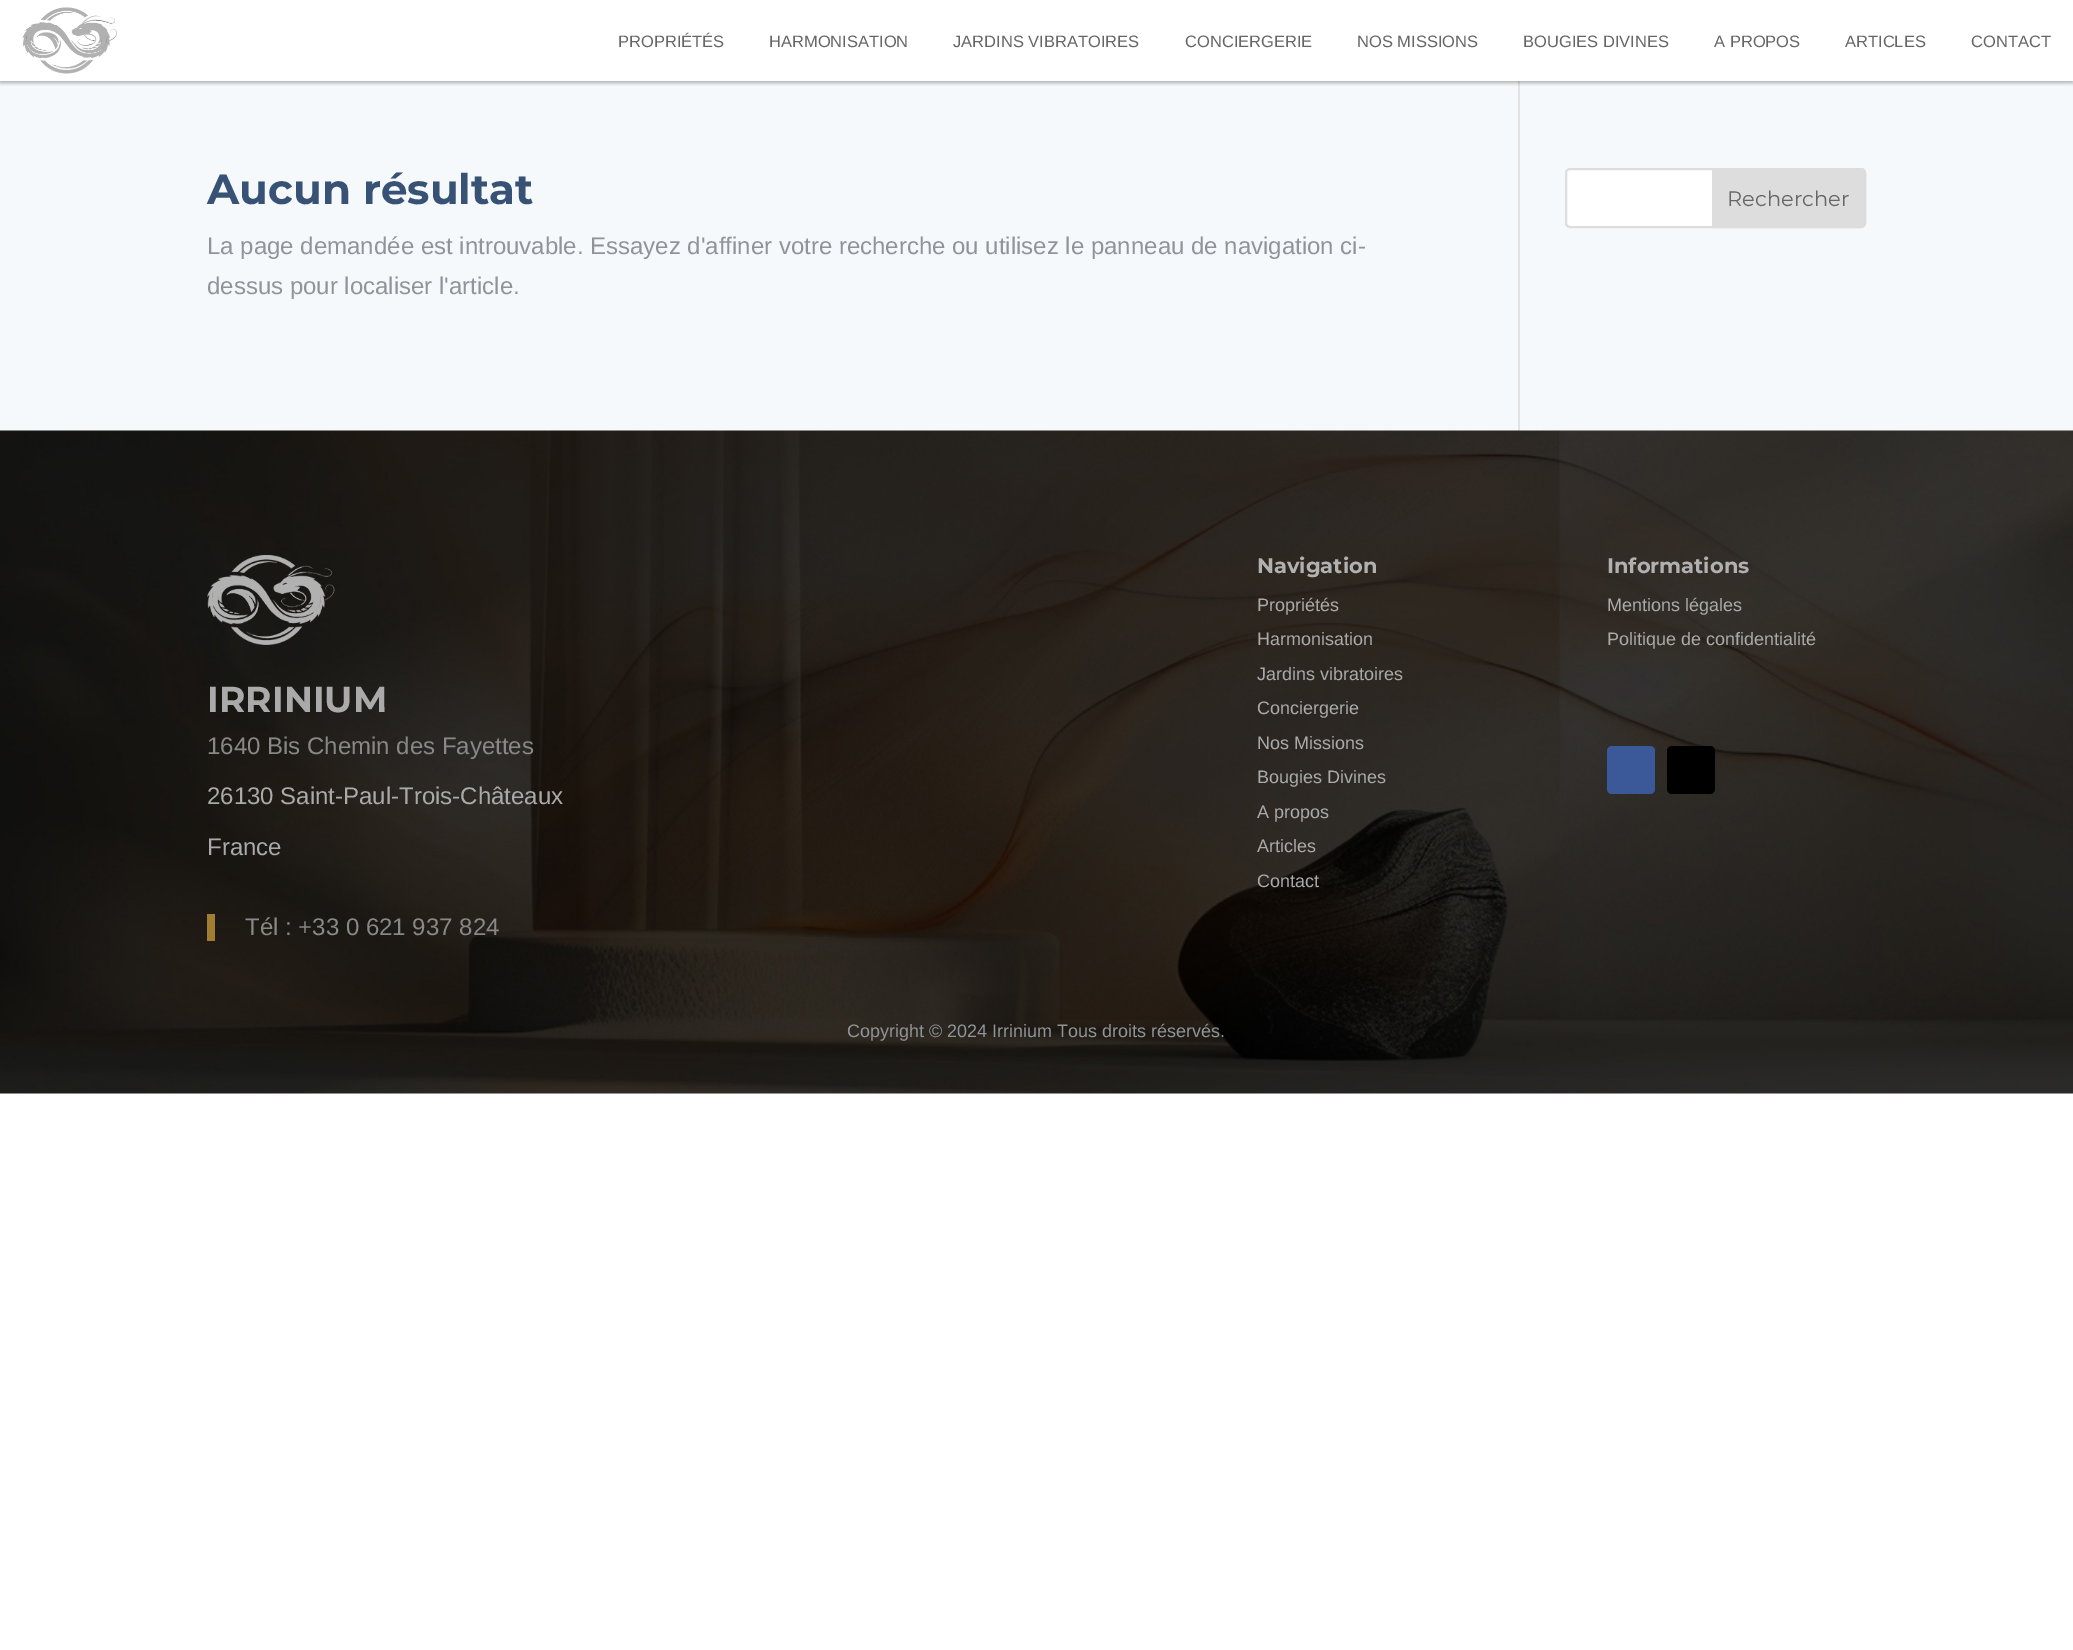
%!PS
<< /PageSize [2073 1650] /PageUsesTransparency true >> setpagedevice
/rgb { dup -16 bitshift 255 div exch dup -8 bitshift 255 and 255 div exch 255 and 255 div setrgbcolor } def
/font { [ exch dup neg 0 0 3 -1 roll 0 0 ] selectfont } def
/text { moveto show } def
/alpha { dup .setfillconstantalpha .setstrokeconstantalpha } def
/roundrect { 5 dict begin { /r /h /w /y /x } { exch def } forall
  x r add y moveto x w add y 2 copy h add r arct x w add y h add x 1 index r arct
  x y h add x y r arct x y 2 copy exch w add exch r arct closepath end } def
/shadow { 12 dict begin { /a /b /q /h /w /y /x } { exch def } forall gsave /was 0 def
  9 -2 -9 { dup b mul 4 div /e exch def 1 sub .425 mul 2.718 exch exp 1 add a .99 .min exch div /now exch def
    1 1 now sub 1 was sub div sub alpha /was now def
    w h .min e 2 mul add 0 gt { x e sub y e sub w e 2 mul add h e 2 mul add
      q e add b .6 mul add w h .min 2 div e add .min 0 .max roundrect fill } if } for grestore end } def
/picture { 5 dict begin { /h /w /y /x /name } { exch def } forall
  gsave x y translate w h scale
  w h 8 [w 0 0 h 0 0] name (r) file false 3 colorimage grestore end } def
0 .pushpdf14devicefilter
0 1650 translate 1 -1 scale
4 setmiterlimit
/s1 { /LiberationSans-Regular 16.5 font 16#666666 rgb } def
/s2 { /Montserrat-Bold 42 font 16#375274 rgb } def
/s3 { /LiberationSans-Regular 24 font 16#909499 rgb } def
/s4 { /Montserrat-Regular 21 font 16#666666 rgb } def
/s5 { /Montserrat-Bold 21 font 16#B1B1B1 rgb } def
/s6 { /LiberationSans-Regular 18 font 16#AAAAAA rgb } def
/s7 { /Montserrat-Bold 36 font 16#AAAAAA rgb } def
/s8 { /LiberationSans-Regular 24 font 16#888888 rgb } def
/s9 { /LiberationSans-Regular 24 font 16#AAAAAA rgb } def
/s10 { /LiberationSans-Regular 18 font 16#909499 rgb } def
16#FFFFFF rgb
0 0 2073 1650 rectfill
16#F5F9FC rgb
0 81 2073 350 rectfill
16#E2E2E2 rgb
1518 81 2 350 rectfill
gsave
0 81 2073 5 rectclip
16#000000 rgb
0 2 2073 81 0 2 0.3 shadow
grestore
(pic1.raw) 22 7 95 67 picture
s1
(PROPRIÉTÉS) 618 47 text
(HARMONISATION) 769 47 text
(JARDINS VIBRATOIRES) 953 47 text
(CONCIERGERIE) 1185 47 text
(NOS MISSIONS) 1357 47 text
(BOUGIES DIVINES) 1523 47 text
(A PROPOS) 1714 47 text
(ARTICLES) 1845 47 text
(CONTACT) 1971 47 text
s2
(Aucun résultat) 207 204 text
s3
(La page demandée est introuvable. Essayez d'affiner votre recherche ou utilisez le panneau de navigation ci-) 207 254 text
(dessus pour localiser l'article.) 207 294 text
16#FFFFFF rgb
1566 169 299 58 4 roundrect gsave fill grestore
16#DDDDDD rgb
2 setlinewidth
stroke
1713 169 moveto 1861 169 lineto 1863 169 1865 171 1865 173 curveto 1865 223 lineto 1865 225 1863 227 1861 227 curveto 1713 227 lineto closepath gsave fill grestore
stroke
s4
(Rechercher) 1727 206 text
(pic2.raw) 0 430 2073 664 picture
s5
(Navigation) 1257 573 text
s6
(Propriétés) 1257 611 text
(Harmonisation) 1257 645 text
(Jardins vibratoires) 1257 680 text
(Conciergerie) 1257 714 text
(Nos Missions) 1257 749 text
(Bougies Divines) 1257 783 text
(A propos) 1257 818 text
(Articles) 1257 852 text
(Contact) 1257 887 text
s5
(Informations) 1607 573 text
s6
(Mentions légales) 1607 611 text
(Politique de confidentialité) 1607 645 text
16#3B5998 rgb
1607 746 48 48 5 roundrect fill
16#000000 rgb
1667 746 48 48 5 roundrect fill
(pic3.raw) 207 555 128 90 picture
s7
(IRRINIUM) 207 712 text
s8
(1640 Bis Chemin des Fayettes) 207 754 text
s9
(26130 Saint-Paul-Trois-Châteaux) 207 804 text
(France) 207 855 text
16#A07D30 rgb
207 914 8 27 rectfill
s8
(Tél : +33 0 621 937 824) 245 935 text
s10
(Copyright © 2024 Irrinium Tous droits réservés.) 847 1037 text
.poppdf14devicefilter showpage
